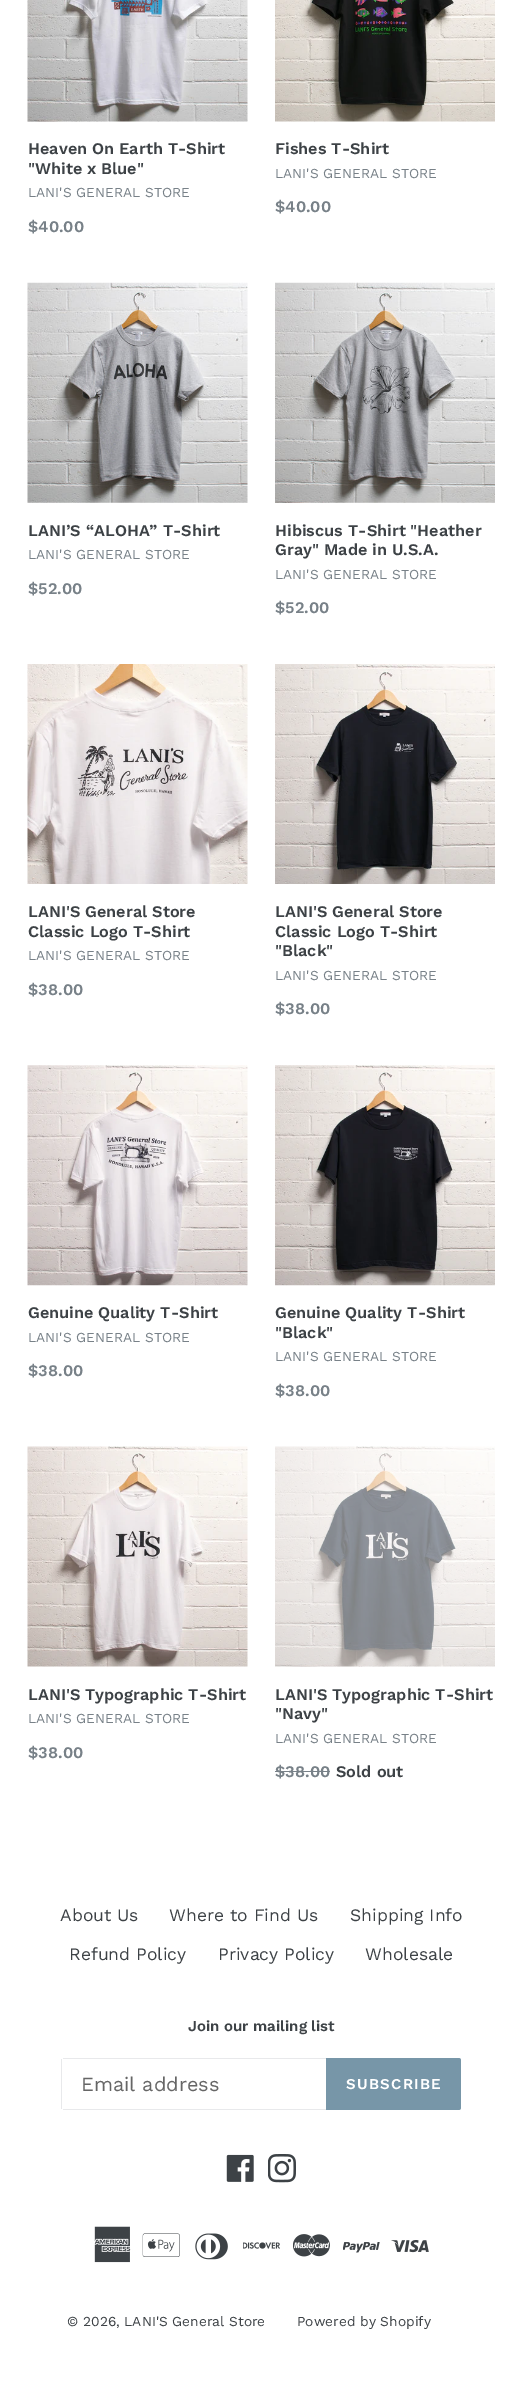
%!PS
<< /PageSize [522 2395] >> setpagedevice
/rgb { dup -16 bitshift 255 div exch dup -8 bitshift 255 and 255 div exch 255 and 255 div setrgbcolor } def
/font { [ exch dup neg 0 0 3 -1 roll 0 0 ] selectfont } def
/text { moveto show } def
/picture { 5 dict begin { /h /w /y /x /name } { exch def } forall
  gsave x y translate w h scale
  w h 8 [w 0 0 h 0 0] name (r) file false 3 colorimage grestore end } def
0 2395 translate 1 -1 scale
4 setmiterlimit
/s1 { /WorkSans-SemiBold 16.25 font 16#3D4246 rgb } def
/s2 { /WorkSans-Regular 13.75 font 16#788188 rgb } def
/s3 { /WorkSans-SemiBold 16.25 font 16#788188 rgb } def
/s4 { /WorkSans-Regular 17.5 font 16#3D4246 rgb } def
/s5 { /WorkSans-SemiBold 15 font 16#3D4246 rgb } def
/s6 { /WorkSans-Regular 20 font 16#666666 rgb } def
/s7 { /WorkSans-Regular 13.75 font 16#3D4246 rgb } def
16#FFFFFF rgb
0 0 522 2395 rectfill
(pic1.raw) 27 0 221 122 picture
s1
(Heaven On Earth T-Shirt) 28 154 text
("White x Blue") 28 174 text
s2
(LANI'S GENERAL STORE) 28 197 text
s3
($40.00) 28 232 text
(pic2.raw) 275 0 220 122 picture
s1
(Fishes T-Shirt) 275 154 text
s2
(LANI'S GENERAL STORE) 275 178 text
s3
($40.00) 275 212 text
(pic3.raw) 27 282 221 221 picture
s1
(LANI’S “ALOHA” T-Shirt) 28 536 text
s2
(LANI'S GENERAL STORE) 28 559 text
s3
($52.00) 28 594 text
(pic4.raw) 275 282 220 221 picture
s1
(Hibiscus T-Shirt "Heather) 275 536 text
(Gray" Made in U.S.A.) 275 555 text
s2
(LANI'S GENERAL STORE) 275 579 text
s3
($52.00) 275 613 text
(pic5.raw) 27 664 221 220 picture
s1
(LANI'S General Store) 28 917 text
(Classic Logo T-Shirt) 28 937 text
s2
(LANI'S GENERAL STORE) 28 960 text
s3
($38.00) 28 995 text
(pic6.raw) 275 664 220 220 picture
s1
(LANI'S General Store) 275 917 text
(Classic Logo T-Shirt) 275 937 text
("Black") 275 956 text
s2
(LANI'S GENERAL STORE) 275 980 text
s3
($38.00) 275 1014 text
(pic7.raw) 27 1065 221 221 picture
s1
(Genuine Quality T-Shirt) 28 1318 text
s2
(LANI'S GENERAL STORE) 28 1342 text
s3
($38.00) 28 1376 text
(pic8.raw) 275 1065 220 221 picture
s1
(Genuine Quality T-Shirt) 275 1318 text
("Black") 275 1338 text
s2
(LANI'S GENERAL STORE) 275 1361 text
s3
($38.00) 275 1396 text
(pic9.raw) 27 1446 221 221 picture
s1
(LANI'S Typographic T-Shirt) 28 1700 text
s2
(LANI'S GENERAL STORE) 28 1723 text
s3
($38.00) 28 1758 text
(pic10.raw) 275 1446 220 221 picture
s1
(LANI'S Typographic T-Shirt) 275 1700 text
("Navy") 275 1719 text
s2
(LANI'S GENERAL STORE) 275 1743 text
s3
($38.00) 275 1777 text
275 1771 55 1 rectfill
s1
(Sold out) 336 1777 text
s4
(About Us) 60 1921 text
(Where to Find Us) 169 1921 text
(Shipping Info) 350 1921 text
(Refund Policy) 69 1960 text
(Privacy Policy) 218 1960 text
(Wholesale) 365 1960 text
s5
(Join our mailing list) 188 2031 text
16#E8E9EB rgb
63 2058 263 1 rectfill
63 2109 263 1 rectfill
61 2059 1 50 rectfill
s6
(Email address) 81 2091 text
16#7796A8 rgb
326 2058 moveto 458.5 2058 lineto 460 2058 461 2059 461 2060.5 curveto 461 2107.5 lineto 461 2109 460 2110 458.5 2110 curveto 326 2110 lineto closepath fill
/WorkSans-SemiBold 15 font
16#FFFFFF rgb
346 2089 moveto 1.25 0 (SUBSCRIBE) ashow
(pic11.raw) 226 2154 28 28 picture
(pic12.raw) 268 2154 28 29 picture
(pic13.raw) 94 2226 37 37 picture
(pic14.raw) 142 2233 38 24 picture
(pic15.raw) 195 2233 33 27 picture
(pic16.raw) 243 2242 37 7 picture
(pic17.raw) 293 2234 37 23 picture
(pic18.raw) 343 2242 37 11 picture
(pic19.raw) 391 2240 38 13 picture
s7
(© 2026, LANI'S General Store) 67 2326 text
(Powered by Shopify) 297 2326 text
showpage
